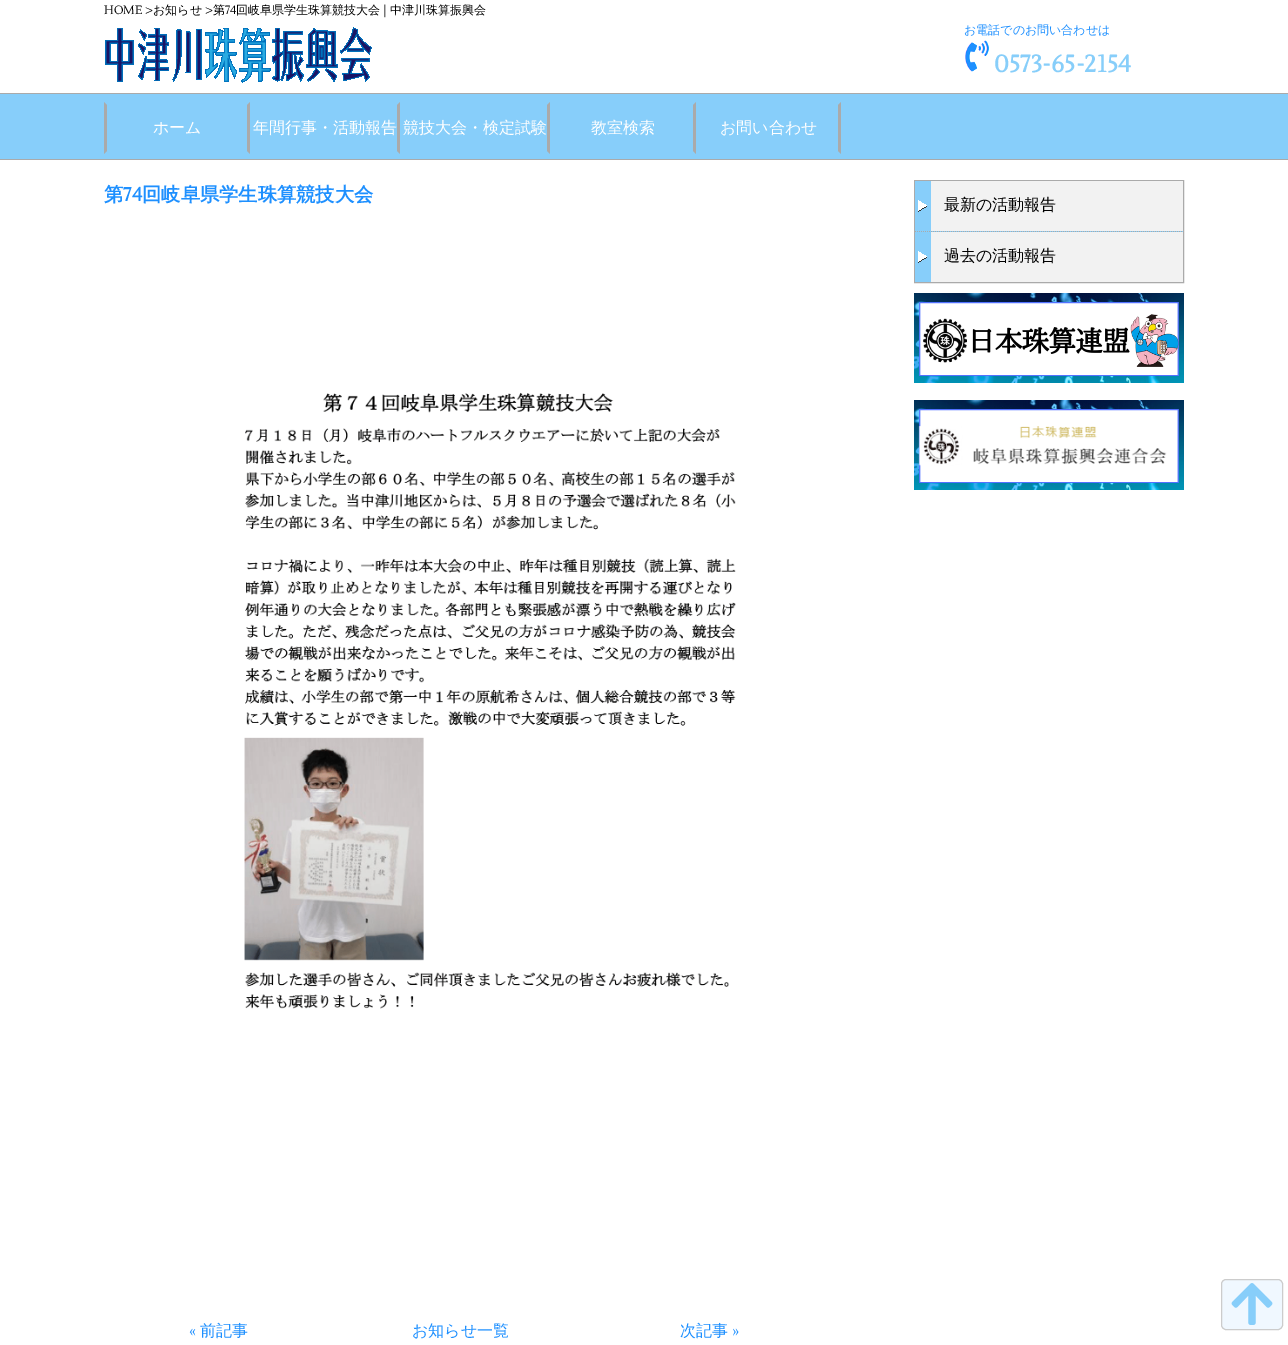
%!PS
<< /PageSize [1288 1345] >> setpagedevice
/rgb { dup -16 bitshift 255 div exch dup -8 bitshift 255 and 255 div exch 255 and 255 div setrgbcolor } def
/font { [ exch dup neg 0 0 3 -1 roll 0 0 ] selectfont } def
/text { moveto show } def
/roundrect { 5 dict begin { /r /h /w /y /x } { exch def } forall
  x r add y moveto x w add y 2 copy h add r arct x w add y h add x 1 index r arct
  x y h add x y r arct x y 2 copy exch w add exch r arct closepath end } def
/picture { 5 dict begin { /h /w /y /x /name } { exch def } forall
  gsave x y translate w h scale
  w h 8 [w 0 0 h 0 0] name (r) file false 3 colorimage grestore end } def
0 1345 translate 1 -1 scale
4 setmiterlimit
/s1 { /Lustria-Regular 12 font 16#000000 rgb } def
/s2 { /WenQuanYiZenHei-Medium 12 font 16#000000 rgb } def
/s3 { /WenQuanYiZenHei-Medium 12 font 16#1E90FF rgb } def
/s4 { /Lustria-Bold 24 font 16#87CEFA rgb } def
/s5 { /WenQuanYiZenHei-Medium 16 font 16#FFFFFF rgb } def
/s6 { /WenQuanYiZenHei-Bold 19.25 font 16#1E90FF rgb } def
/s7 { /Lustria-Bold 19.25 font 16#1E90FF rgb } def
/s8 { /Lustria-Regular 16 font 16#1E90FF rgb } def
/s9 { /WenQuanYiZenHei-Medium 16 font 16#1E90FF rgb } def
/s10 { /WenQuanYiZenHei-Medium 16 font 16#000000 rgb } def
16#FFFFFF rgb
0 0 1288 1345 rectfill
s1
(HOME >) 104 14 text
s2
(お知らせ) 153 14 text
s1
(>) 205 14 text
s2
(第) 213 14 text
s1
(74) 225 14 text
s2
(回岐阜県学生珠算競技大会) 236 14 text
s1
(|) 383 14 text
s2
(中津川珠算振興会) 390 14 text
(pic1.raw) 105 27 267 56 picture
s3
(お電話でのお問い合わせは) 964 34 text
(pic2.raw) 965 40 24 32 picture
s4
(0573-65-2154) 994 72 text
0 94 1288 65 rectfill
16#AAAAAA rgb
0 93 1288 1 rectfill
0 159 1288 1 rectfill
250 102 moveto 250 154 lineto 247 151 lineto 247 105 lineto closepath fill
104 154 moveto 104 102 lineto 107 105 lineto 107 151 lineto closepath fill
s5
(ホーム) 153 133 text
16#AAAAAA rgb
400 102 moveto 400 154 lineto 397 151 lineto 397 105 lineto closepath fill
s5
(年間行事・活動報告) 253 133 text
16#AAAAAA rgb
550 102 moveto 550 154 lineto 547 151 lineto 547 105 lineto closepath fill
s5
(競技大会・検定試験) 403 133 text
16#AAAAAA rgb
696 102 moveto 696 154 lineto 693 151 lineto 693 105 lineto closepath fill
s5
(教室検索) 591 133 text
16#AAAAAA rgb
841 102 moveto 841 154 lineto 838 151 lineto 838 105 lineto closepath fill
s5
(お問い合わせ) 720 133 text
s6
(第) 104 201 text
s7
(74) 123 201 text
s6
(回岐阜県学生珠算競技大会) 142 201 text
(pic3.raw) 244 392 492 617 picture
s8
(«) 189 1336 text
s9
(前記事) 200 1336 text
(お知らせ一覧) 412 1336 text
(次記事) 680 1336 text
s8
(») 732 1336 text
16#AAAAAA rgb
914.5 180.5 269 102 rectstroke
16#87CEFA rgb
915 181 268 51 rectfill
(pic4.raw) 918 200 9 12 picture
16#AAAAAA rgb
[1 1] 0 setdash
915 231.5 moveto 1183 231.5 lineto stroke
16#F2F2F2 rgb
931 181 252 50 rectfill
s10
(最新の活動報告) 944 210 text
16#87CEFA rgb
915 232 16 50 rectfill
(pic4.raw) 918 251 9 12 picture
16#F2F2F2 rgb
931 232 252 50 rectfill
s10
(過去の活動報告) 944 261 text
(pic5.raw) 914 293 270 90 picture
(pic6.raw) 914 400 270 90 picture
16#F0F8FF rgb
1221.5 1279.5 61 50 4.5 roundrect gsave fill grestore
16#CCCCCC rgb
[] 0 setdash
stroke
(pic7.raw) 1231 1283 42 42 picture
showpage
